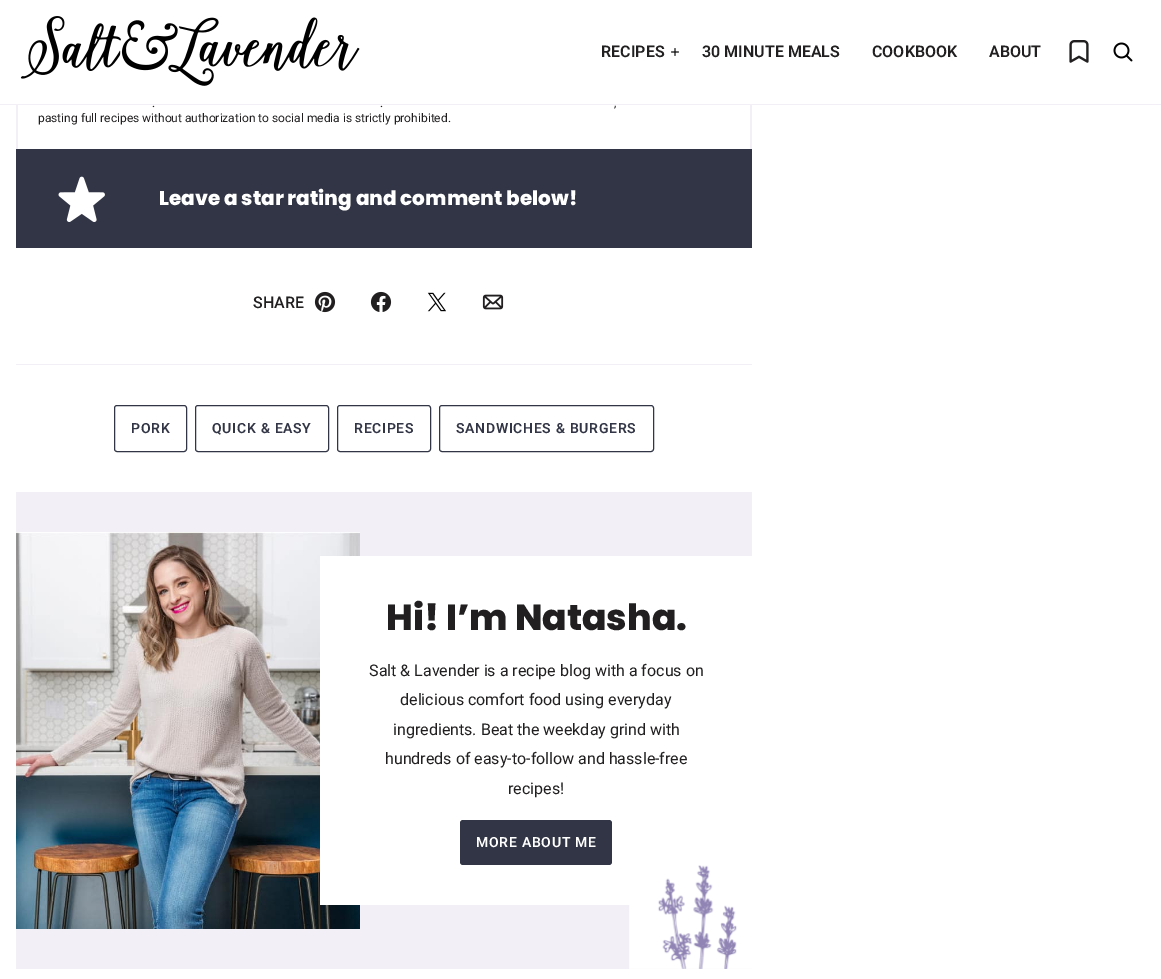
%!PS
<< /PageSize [1161 979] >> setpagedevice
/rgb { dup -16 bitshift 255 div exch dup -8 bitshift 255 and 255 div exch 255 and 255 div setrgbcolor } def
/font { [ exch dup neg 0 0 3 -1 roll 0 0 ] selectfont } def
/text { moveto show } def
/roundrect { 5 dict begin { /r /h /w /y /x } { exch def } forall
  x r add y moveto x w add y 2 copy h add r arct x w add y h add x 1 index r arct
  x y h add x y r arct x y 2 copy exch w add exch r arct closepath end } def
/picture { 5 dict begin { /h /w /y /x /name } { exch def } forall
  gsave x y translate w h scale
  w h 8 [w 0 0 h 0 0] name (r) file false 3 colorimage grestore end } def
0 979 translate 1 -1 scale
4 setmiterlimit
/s1 { /Roboto-SemiBold 16 font 16#211F20 rgb } def
/s2 { /Roboto-Regular 12 font 16#211F20 rgb } def
/s3 { /Poppins-ExtraBold 20 font 16#FFFFFF rgb } def
/s4 { /Roboto-Medium 16 font 16#211F20 rgb } def
/s5 { /Poppins-ExtraBold 36 font 16#211F20 rgb } def
/s6 { /Roboto-Regular 16 font 16#211F20 rgb } def
16#FFFFFF rgb
0 0 1161 979 rectfill
16#F2F0F6 rgb
0 104 1161 1 rectfill
(pic1.raw) 20 16 340 70 picture
s1
(RECIPES) 601 57 text
(pic2.raw) 671 48 8 8 picture
(30 MINUTE MEALS) 702 57 text
(COOKBOOK) 872 57 text
(ABOUT) 989 57 text
(pic3.raw) 1069 40 20 23 picture
(pic4.raw) 1113 42 20 20 picture
16#F2F0F6 rgb
750 105 2 44 rectfill
16 105 2 44 rectfill
s2
(.) 152 107 text
(.) 380 107 text
(,) 614 107 text
(pasting full recipes without authorization to social media is strictly prohibited.) 38 122 text
16#323545 rgb
16 149 736 99 rectfill
(pic5.raw) 58 176 47 46 picture
s3
(Leave a star rating and comment below!) 159 205 text
s4
(SHARE) 253 308 text
(pic6.raw) 314 291 22 22 picture
(pic7.raw) 370 291 22 21 picture
(pic8.raw) 427 292 19 20 picture
(pic9.raw) 482 294 22 16 picture
16#F2F0F6 rgb
16 364 736 1 rectfill
16#323545 rgb
114.5 405.5 72 46 2.5 roundrect stroke
/Roboto-SemiBold 14 font
131 433 moveto 0.7 0 (PORK) ashow
195.5 405.5 133 46 2.5 roundrect stroke
212 433 moveto 0.7 0 (QUICK & EASY) ashow
337.5 405.5 93 46 2.5 roundrect stroke
354 433 moveto 0.7 0 (RECIPES) ashow
439.5 405.5 214 46 2.5 roundrect stroke
456 433 moveto 0.7 0 (SANDWICHES & BURGERS) ashow
16#F2F0F6 rgb
16 492 736 477 rectfill
(pic10.raw) 16 532 344 397 picture
16#FFFFFF rgb
320 556 432 349 rectfill
s5
(Hi! I’m Natasha.) 386 630 text
s6
(Salt & Lavender is a recipe blog with a focus on) 369 676 text
(delicious comfort food using everyday) 400 705 text
(ingredients. Beat the weekday grind with) 393 735 text
(hundreds of easy-to-follow and hassle-free) 385 764 text
(recipes!) 508 794 text
16#323545 rgb
460 820 152 45 3 roundrect fill
/Roboto-SemiBold 14 font
16#FFFFFF rgb
476 847 moveto 0.7 0 (MORE ABOUT ME) ashow
(pic11.raw) 629 865 123 104 picture
showpage
